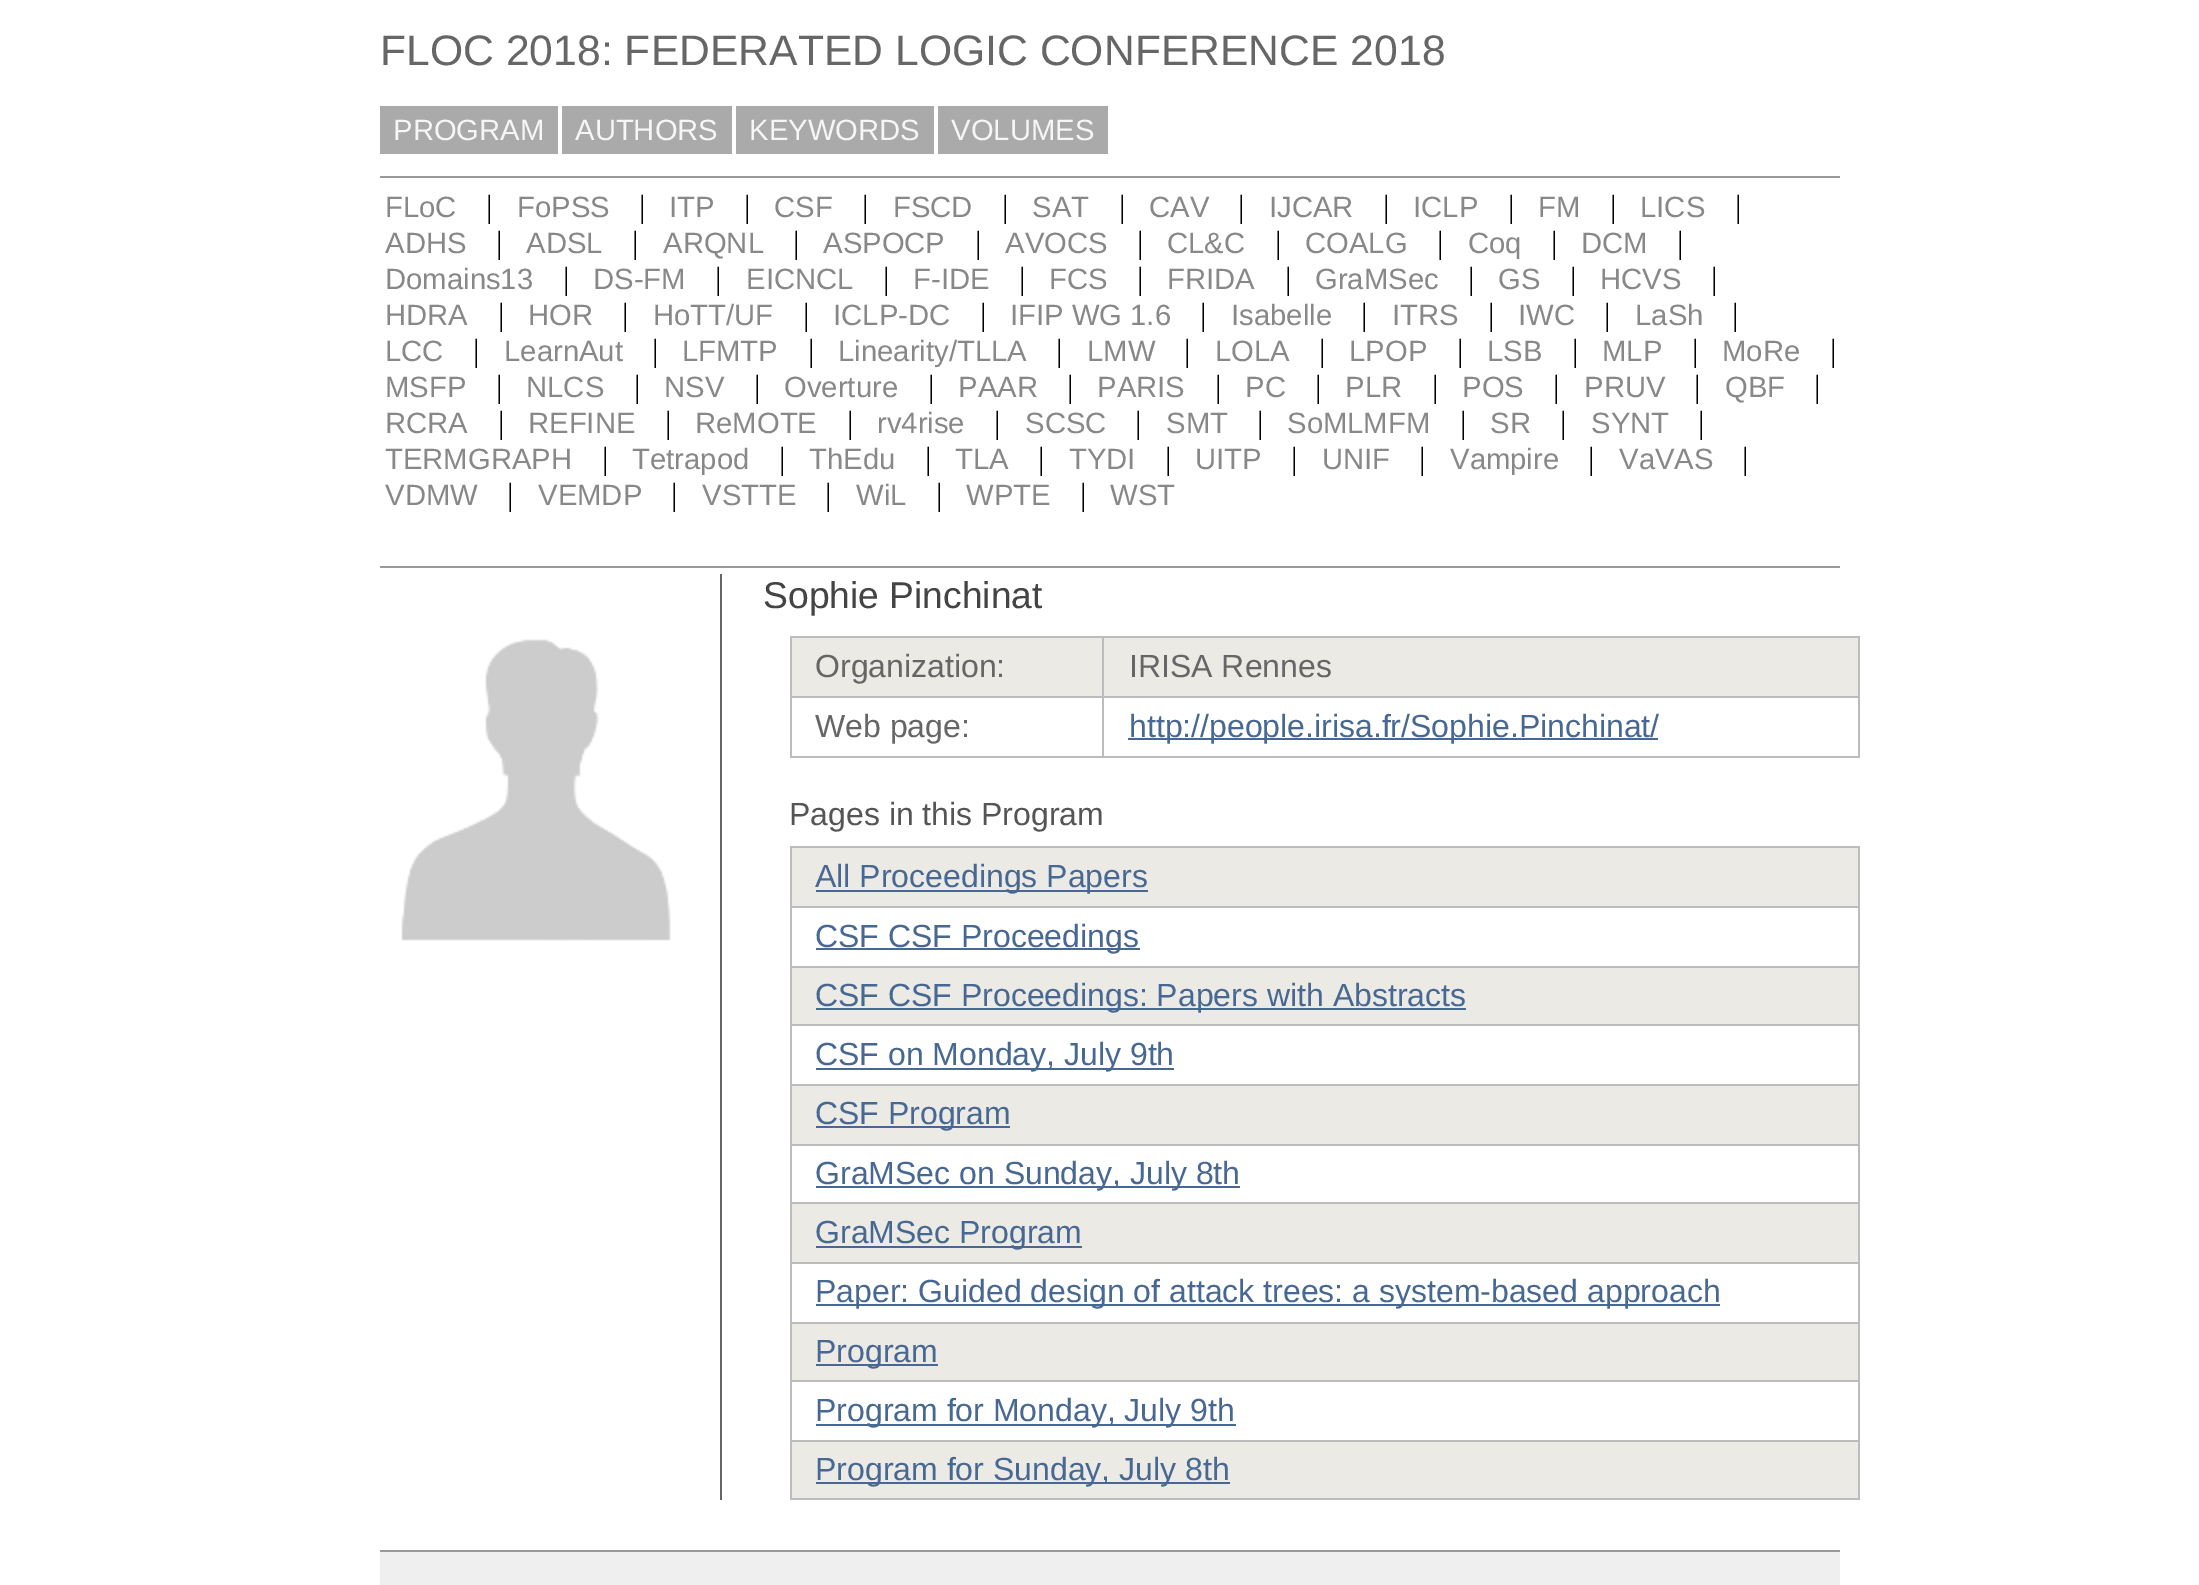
%!PS
<< /PageSize [2199 1585] >> setpagedevice
/rgb { dup -16 bitshift 255 div exch dup -8 bitshift 255 and 255 div exch 255 and 255 div setrgbcolor } def
/font { [ exch dup neg 0 0 3 -1 roll 0 0 ] selectfont } def
/text { moveto show } def
/picture { 5 dict begin { /h /w /y /x /name } { exch def } forall
  gsave x y translate w h scale
  w h 8 [w 0 0 h 0 0] name (r) file false 3 colorimage grestore end } def
0 1585 translate 1 -1 scale
4 setmiterlimit
/s1 { /LiberationSans-Regular 42.7 font 16#666666 rgb } def
/s2 { /LiberationSans-Regular 29.25 font 16#F6F6F6 rgb } def
/s3 { /LiberationSans-Regular 29.25 font 16#888888 rgb } def
/s4 { /LiberationSerif-Regular 32 font 16#000000 rgb } def
/s5 { /LiberationSans-Regular 37.25 font 16#444444 rgb } def
/s6 { /LiberationSans-Regular 32 font 16#666666 rgb } def
/s7 { /LiberationSans-Regular 32 font 16#486894 rgb } def
/s8 { /LiberationSans-Regular 32 font 16#555555 rgb } def
16#FFFFFF rgb
0 0 2199 1585 rectfill
s1
(FLOC 2018: FEDERATED LOGIC CONFERENCE 2018) 380 65 text
16#AAAAAA rgb
380 106 178 48 rectfill
s2
(PROGRAM) 393 140 text
16#AAAAAA rgb
562 106 170 48 rectfill
s2
(AUTHORS) 575 140 text
16#AAAAAA rgb
736 106 198 48 rectfill
s2
(KEYWORDS) 749 140 text
16#AAAAAA rgb
938 106 170 48 rectfill
s2
(VOLUMES) 951 140 text
16#999999 rgb
380 176 1460 2 rectfill
s3
(FLoC) 385 217 text
s4
(|) 486 217 text
s3
(FoPSS) 517 217 text
s4
(|) 639 217 text
s3
(ITP) 669 217 text
s4
(|) 744 217 text
s3
(CSF) 774 217 text
s4
(|) 862 217 text
s3
(FSCD) 893 217 text
s4
(|) 1002 217 text
s3
(SAT) 1032 217 text
s4
(|) 1119 217 text
s3
(CAV) 1149 217 text
s4
(|) 1238 217 text
s3
(IJCAR) 1269 217 text
s4
(|) 1383 217 text
s3
(ICLP) 1413 217 text
s4
(|) 1508 217 text
s3
(FM) 1538 217 text
s4
(|) 1610 217 text
s3
(LICS) 1640 217 text
s4
(|) 1735 217 text
s3
(ADHS) 385 253 text
s4
(|) 496 253 text
s3
(ADSL) 526 253 text
s4
(|) 632 253 text
s3
(ARQNL) 663 253 text
s4
(|) 793 253 text
s3
(ASPOCP) 823 253 text
s4
(|) 975 253 text
s3
(AVOCS) 1005 253 text
s4
(|) 1137 253 text
s3
(CL&C) 1167 253 text
s4
(|) 1275 253 text
s3
(COALG) 1305 253 text
s4
(|) 1437 253 text
s3
(Coq) 1468 253 text
s4
(|) 1551 253 text
s3
(DCM) 1581 253 text
s4
(|) 1677 253 text
s3
(Domains13) 385 289 text
s4
(|) 563 289 text
s3
(DS-FM) 593 289 text
s4
(|) 715 289 text
s3
(EICNCL) 746 289 text
s4
(|) 883 289 text
s3
(F-IDE) 913 289 text
s4
(|) 1019 289 text
s3
(FCS) 1049 289 text
s4
(|) 1137 289 text
s3
(FRIDA) 1167 289 text
s4
(|) 1285 289 text
s3
(GraMSec) 1315 289 text
s4
(|) 1468 289 text
s3
(GS) 1498 289 text
s4
(|) 1570 289 text
s3
(HCVS) 1600 289 text
s4
(|) 1711 289 text
s3
(HDRA) 385 325 text
s4
(|) 498 325 text
s3
(HOR) 528 325 text
s4
(|) 622 325 text
s3
(HoTT/UF) 653 325 text
s4
(|) 803 325 text
s3
(ICLP-DC) 833 325 text
s4
(|) 980 325 text
s3
(IFIP WG 1.6) 1010 325 text
s4
(|) 1200 325 text
s3
(Isabelle) 1231 325 text
s4
(|) 1361 325 text
s3
(ITRS) 1392 325 text
s4
(|) 1488 325 text
s3
(IWC) 1518 325 text
s4
(|) 1604 325 text
s3
(LaSh) 1635 325 text
s4
(|) 1732 325 text
s3
(LCC) 385 361 text
s4
(|) 473 361 text
s3
(LearnAut) 504 361 text
s4
(|) 652 361 text
s3
(LFMTP) 682 361 text
s4
(|) 808 361 text
s3
(Linearity/TLLA) 838 361 text
s4
(|) 1056 361 text
s3
(LMW) 1087 361 text
s4
(|) 1184 361 text
s3
(LOLA) 1215 361 text
s4
(|) 1319 361 text
s3
(LPOP) 1349 361 text
s4
(|) 1457 361 text
s3
(LSB) 1487 361 text
s4
(|) 1572 361 text
s3
(MLP) 1602 361 text
s4
(|) 1692 361 text
s3
(MoRe) 1722 361 text
s4
(|) 1830 361 text
s3
(MSFP) 385 397 text
s4
(|) 496 397 text
s3
(NLCS) 526 397 text
s4
(|) 634 397 text
s3
(NSV) 664 397 text
s4
(|) 754 397 text
s3
(Overture) 784 397 text
s4
(|) 928 397 text
s3
(PAAR) 958 397 text
s4
(|) 1067 397 text
s3
(PARIS) 1097 397 text
s4
(|) 1215 397 text
s3
(PC) 1245 397 text
s4
(|) 1315 397 text
s3
(PLR) 1345 397 text
s4
(|) 1432 397 text
s3
(POS) 1462 397 text
s4
(|) 1553 397 text
s3
(PRUV) 1584 397 text
s4
(|) 1694 397 text
s3
(QBF) 1725 397 text
s4
(|) 1814 397 text
s3
(RCRA) 385 433 text
s4
(|) 498 433 text
s3
(REFINE) 528 433 text
s4
(|) 665 433 text
s3
(ReMOTE) 695 433 text
s4
(|) 847 433 text
s3
(rv4rise) 877 433 text
s4
(|) 994 433 text
s3
(SCSC) 1025 433 text
s4
(|) 1135 433 text
s3
(SMT) 1166 433 text
s4
(|) 1257 433 text
s3
(SoMLMFM) 1287 433 text
s4
(|) 1460 433 text
s3
(SR) 1490 433 text
s4
(|) 1560 433 text
s3
(SYNT) 1591 433 text
s4
(|) 1698 433 text
s3
(TERMGRAPH) 385 469 text
s4
(|) 602 469 text
s3
(Tetrapod) 632 469 text
s4
(|) 779 469 text
s3
(ThEdu) 809 469 text
s4
(|) 925 469 text
s3
(TLA) 955 469 text
s4
(|) 1038 469 text
s3
(TYDI) 1069 469 text
s4
(|) 1165 469 text
s3
(UITP) 1195 469 text
s4
(|) 1291 469 text
s3
(UNIF) 1322 469 text
s4
(|) 1419 469 text
s3
(Vampire) 1450 469 text
s4
(|) 1588 469 text
s3
(VaVAS) 1619 469 text
s4
(|) 1742 469 text
s3
(VDMW) 385 505 text
s4
(|) 507 505 text
s3
(VEMDP) 538 505 text
s4
(|) 671 505 text
s3
(VSTTE) 702 505 text
s4
(|) 825 505 text
s3
(WiL) 856 505 text
s4
(|) 936 505 text
s3
(WPTE) 966 505 text
s4
(|) 1080 505 text
s3
(WST) 1110 505 text
16#999999 rgb
380 566 1460 2 rectfill
(pic1.raw) 401 639 270 302 picture
16#666666 rgb
720 574 2 926 rectfill
s5
(Sophie Pinchinat) 763 608 text
16#EBEAE5 rgb
792 638 1066 58 rectfill
16#BCBCBC rgb
790 636 1070 2 rectfill
s6
(Organization:) 815 677 text
16#BCBCBC rgb
1102 696 758 2 rectfill
790 756 1070 2 rectfill
1102 696 2 62 rectfill
790 696 314 2 rectfill
1102 636 2 62 rectfill
s6
(IRISA Rennes) 1129 677 text
16#BCBCBC rgb
790 636 2 122 rectfill
s6
(Web page:) 815 737 text
16#BCBCBC rgb
1858 636 2 122 rectfill
16#486894 rgb
1128 738 530 2 rectfill
(http://people.irisa.fr/Sophie.Pinchinat/) 1129 737 text
s8
(Pages in this Program) 789 825 text
16#EBEAE5 rgb
792 848 1066 58 rectfill
16#BCBCBC rgb
790 846 1070 2 rectfill
16#486894 rgb
816 890 332 2 rectfill
(All Proceedings Papers) 815 887 text
16#BCBCBC rgb
790 906 1070 2 rectfill
790 966 1070 2 rectfill
790 1024 1070 2 rectfill
790 1084 1070 2 rectfill
790 1144 1070 2 rectfill
790 1202 1070 2 rectfill
790 1262 1070 2 rectfill
790 1322 1070 2 rectfill
790 1380 1070 2 rectfill
790 1440 1070 2 rectfill
790 1498 1070 2 rectfill
1858 1440 2 60 rectfill
1858 1380 2 62 rectfill
1858 1322 2 60 rectfill
1858 1262 2 62 rectfill
1858 1202 2 62 rectfill
1858 1144 2 60 rectfill
1858 1084 2 62 rectfill
1858 1024 2 62 rectfill
1858 966 2 60 rectfill
1858 846 2 122 rectfill
790 1440 2 60 rectfill
790 1380 2 62 rectfill
790 1322 2 60 rectfill
790 1262 2 62 rectfill
790 1202 2 62 rectfill
790 1144 2 60 rectfill
790 1084 2 62 rectfill
790 1024 2 62 rectfill
790 966 2 60 rectfill
790 846 2 122 rectfill
16#486894 rgb
816 948 324 2 rectfill
(CSF CSF Proceedings) 815 947 text
16#EBEAE5 rgb
792 968 1066 56 rectfill
16#486894 rgb
816 1008 650 2 rectfill
(CSF CSF Proceedings: Papers with Abstracts) 815 1006 text
816 1068 358 2 rectfill
(CSF on Monday, July 9th) 815 1065 text
16#EBEAE5 rgb
792 1086 1066 58 rectfill
16#486894 rgb
816 1126 194 2 rectfill
(CSF Program) 815 1124 text
816 1186 424 2 rectfill
(GraMSec on Sunday, July 8th) 815 1184 text
16#EBEAE5 rgb
792 1204 1066 58 rectfill
16#486894 rgb
816 1246 266 2 rectfill
(GraMSec Program) 815 1243 text
816 1304 904 2 rectfill
(Paper: Guided design of attack trees: a system-based approach) 815 1302 text
16#EBEAE5 rgb
792 1324 1066 56 rectfill
16#486894 rgb
816 1364 122 2 rectfill
(Program) 815 1362 text
816 1424 420 2 rectfill
(Program for Monday, July 9th) 815 1421 text
16#EBEAE5 rgb
792 1442 1066 56 rectfill
16#486894 rgb
816 1482 414 2 rectfill
(Program for Sunday, July 8th) 815 1480 text
16#EFEFEF rgb
380 1552 1460 33 rectfill
16#999999 rgb
380 1550 1460 2 rectfill
showpage
